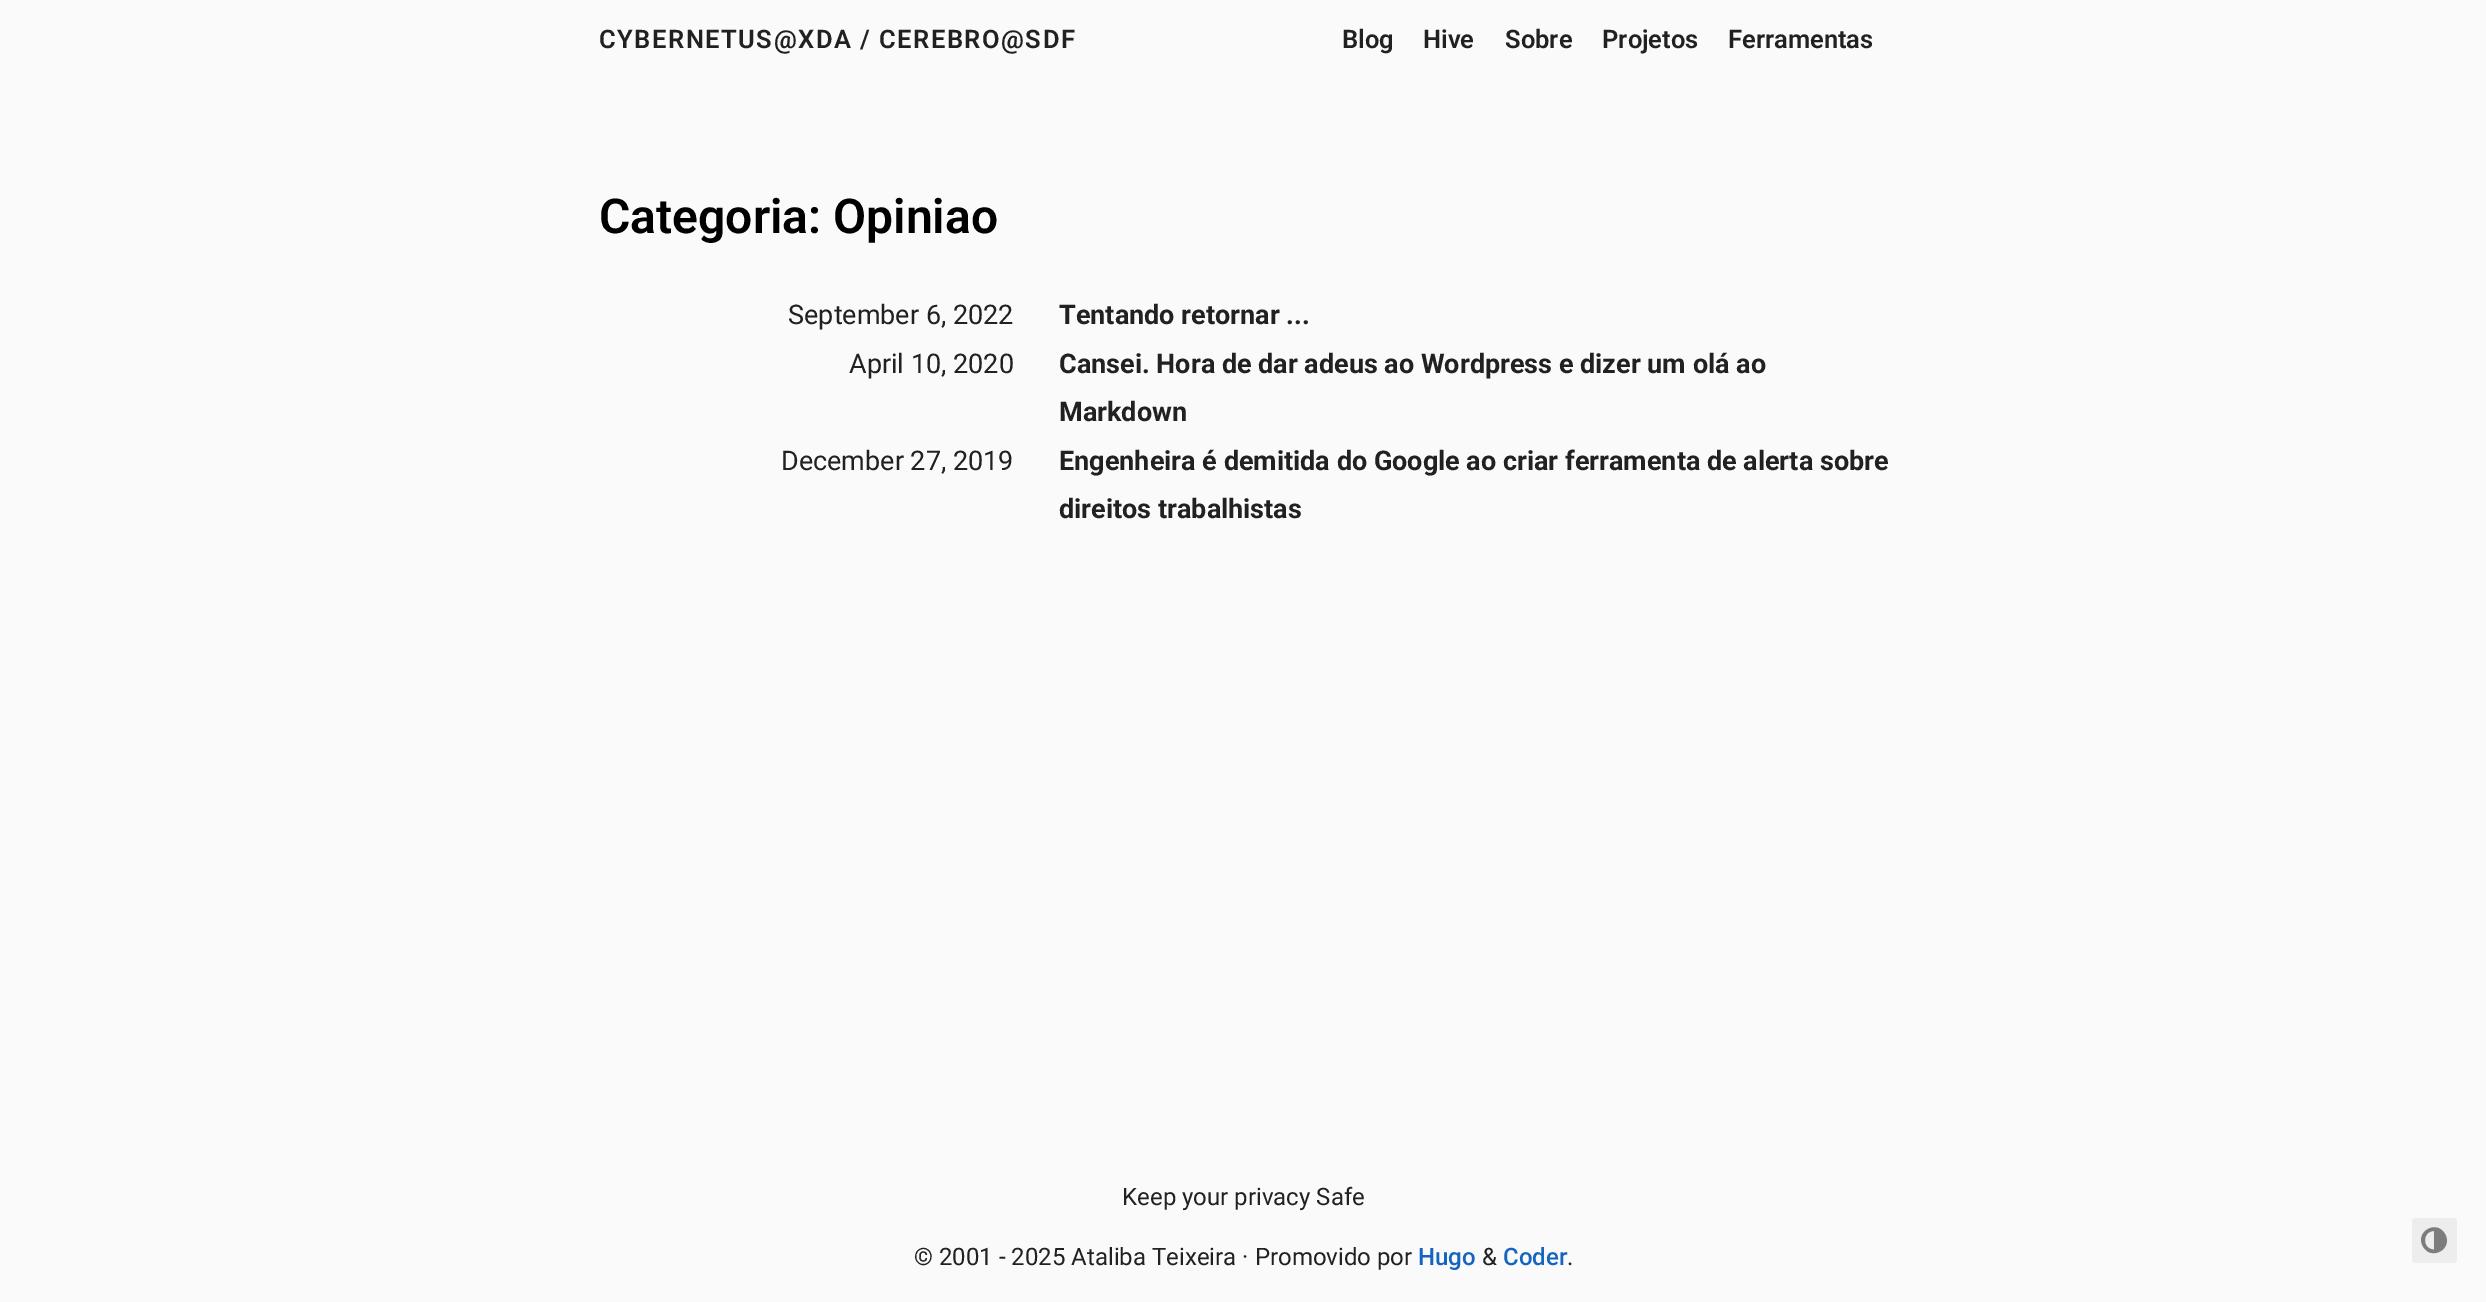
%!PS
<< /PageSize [2486 1302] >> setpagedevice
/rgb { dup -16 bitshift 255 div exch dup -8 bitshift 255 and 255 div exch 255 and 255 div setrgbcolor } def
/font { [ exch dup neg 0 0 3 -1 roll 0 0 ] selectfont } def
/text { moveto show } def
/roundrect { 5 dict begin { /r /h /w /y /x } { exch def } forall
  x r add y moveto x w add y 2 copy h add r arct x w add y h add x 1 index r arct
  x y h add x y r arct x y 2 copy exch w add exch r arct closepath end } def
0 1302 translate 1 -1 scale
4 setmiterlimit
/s1 { /Roboto-SemiBold 25.5 font 16#212121 rgb } def
/s2 { /Roboto-SemiBold 48 font 16#000000 rgb } def
/s3 { /Roboto-Regular 27 font 16#212121 rgb } def
/s4 { /Roboto-Bold 27 font 16#212121 rgb } def
/s5 { /Roboto-Regular 24 font 16#212121 rgb } def
/s6 { /Roboto-Medium 24 font 16#1565C0 rgb } def
16#FAFAFA rgb
0 0 2486 1302 rectfill
/Roboto-SemiBold 25.5 font
16#212121 rgb
599 48 moveto 1.5 0 (CYBERNETUS@XDA / CEREBRO@SDF) ashow
(Blog) 1342 48 text
(Hive) 1423 48 text
(Sobre) 1505 48 text
(Projetos) 1602 48 text
(Ferramentas) 1728 48 text
s2
(Categoria: Opiniao) 599 233 text
s3
(September 6, 2022) 788 324 text
s4
(Tentando retornar ...) 1059 324 text
s3
(April 10, 2020) 849 373 text
s4
(Cansei. Hora de dar adeus ao Wordpress e dizer um olá ao) 1059 373 text
(Markdown) 1059 421 text
s3
(December 27, 2019) 781 470 text
s4
(Engenheira é demitida do Google ao criar ferramenta de alerta sobre) 1059 470 text
(direitos trabalhistas) 1059 518 text
s5
(Keep your privacy Safe) 1122 1205 text
(© 2001 - 2025 Ataliba Teixeira · Promovido por) 914 1265 text
s6
(Hugo) 1418 1265 text
s5
(&) 1482 1265 text
s6
(Coder) 1503 1265 text
s5
(.) 1567 1265 text
16#EDEDED rgb
2412 1218 45 45 3 roundrect fill
16#7D7D7D rgb
2434 1249.5 moveto 2434 1231 lineto 2422 1231 2422 1249.5 2434 1249.5 curveto closepath 2445 1234 moveto 2453.5 1248.5 2431.5 1261.5 2423 1246.5 curveto 2414.5 1232 2436.5 1219 2445 1234 curveto closepath fill
showpage
